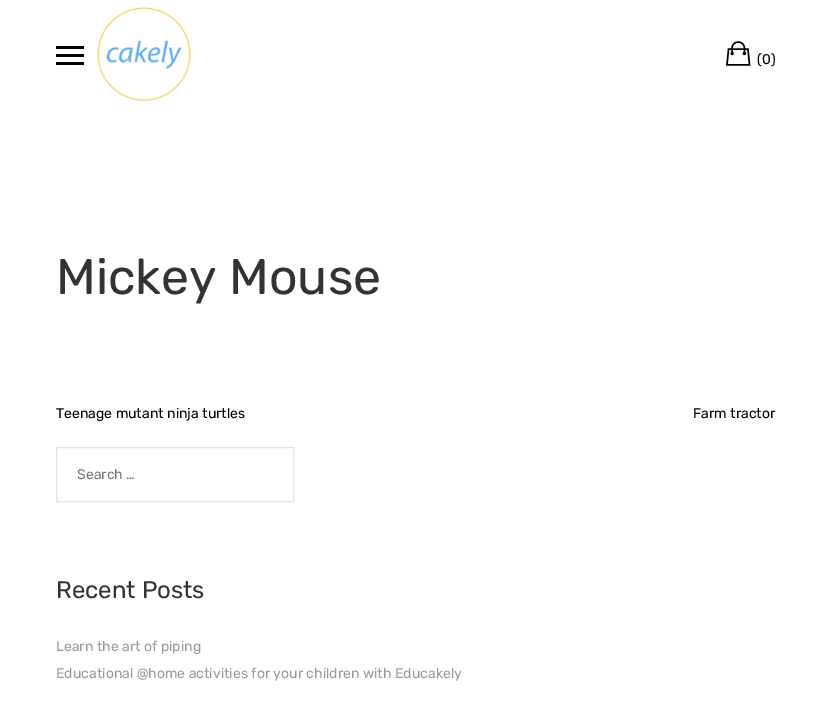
%!PS
<< /PageSize [831 719] >> setpagedevice
/rgb { dup -16 bitshift 255 div exch dup -8 bitshift 255 and 255 div exch 255 and 255 div setrgbcolor } def
/font { [ exch dup neg 0 0 3 -1 roll 0 0 ] selectfont } def
/text { moveto show } def
/picture { 5 dict begin { /h /w /y /x /name } { exch def } forall
  gsave x y translate w h scale
  w h 8 [w 0 0 h 0 0] name (r) file false 3 colorimage grestore end } def
0 719 translate 1 -1 scale
4 setmiterlimit
/s1 { /Rubik-Regular 14 font 16#000000 rgb } def
/s2 { /Rubik-Regular 50 font 16#333333 rgb } def
/s3 { /Rubik-Regular 14 font 16#757575 rgb } def
/s4 { /Rubik-Regular 24 font 16#333333 rgb } def
/s5 { /Rubik-Regular 14 font 16#999999 rgb } def
16#FFFFFF rgb
0 0 831 719 rectfill
16#000000 rgb
56 54 28 3 rectfill
56 46 28 3 rectfill
56 62 28 3 rectfill
(pic1.raw) 97 7 94 94 picture
(pic2.raw) 726 41 25 25 picture
s1
(\(0\)) 757 64 text
s2
(Mickey Mouse) 56 294 text
s1
(Teenage mutant ninja turtles) 56 418 text
(Farm tractor) 693 418 text
16#E3E3E3 rgb
56.5 447.5 237 54 rectstroke
s3
(Search …) 77 479 text
s4
(Recent Posts) 56 598 text
s5
(Learn the art of piping) 56 651 text
(Educational @home activities for your children with Educakely) 56 678 text
showpage
